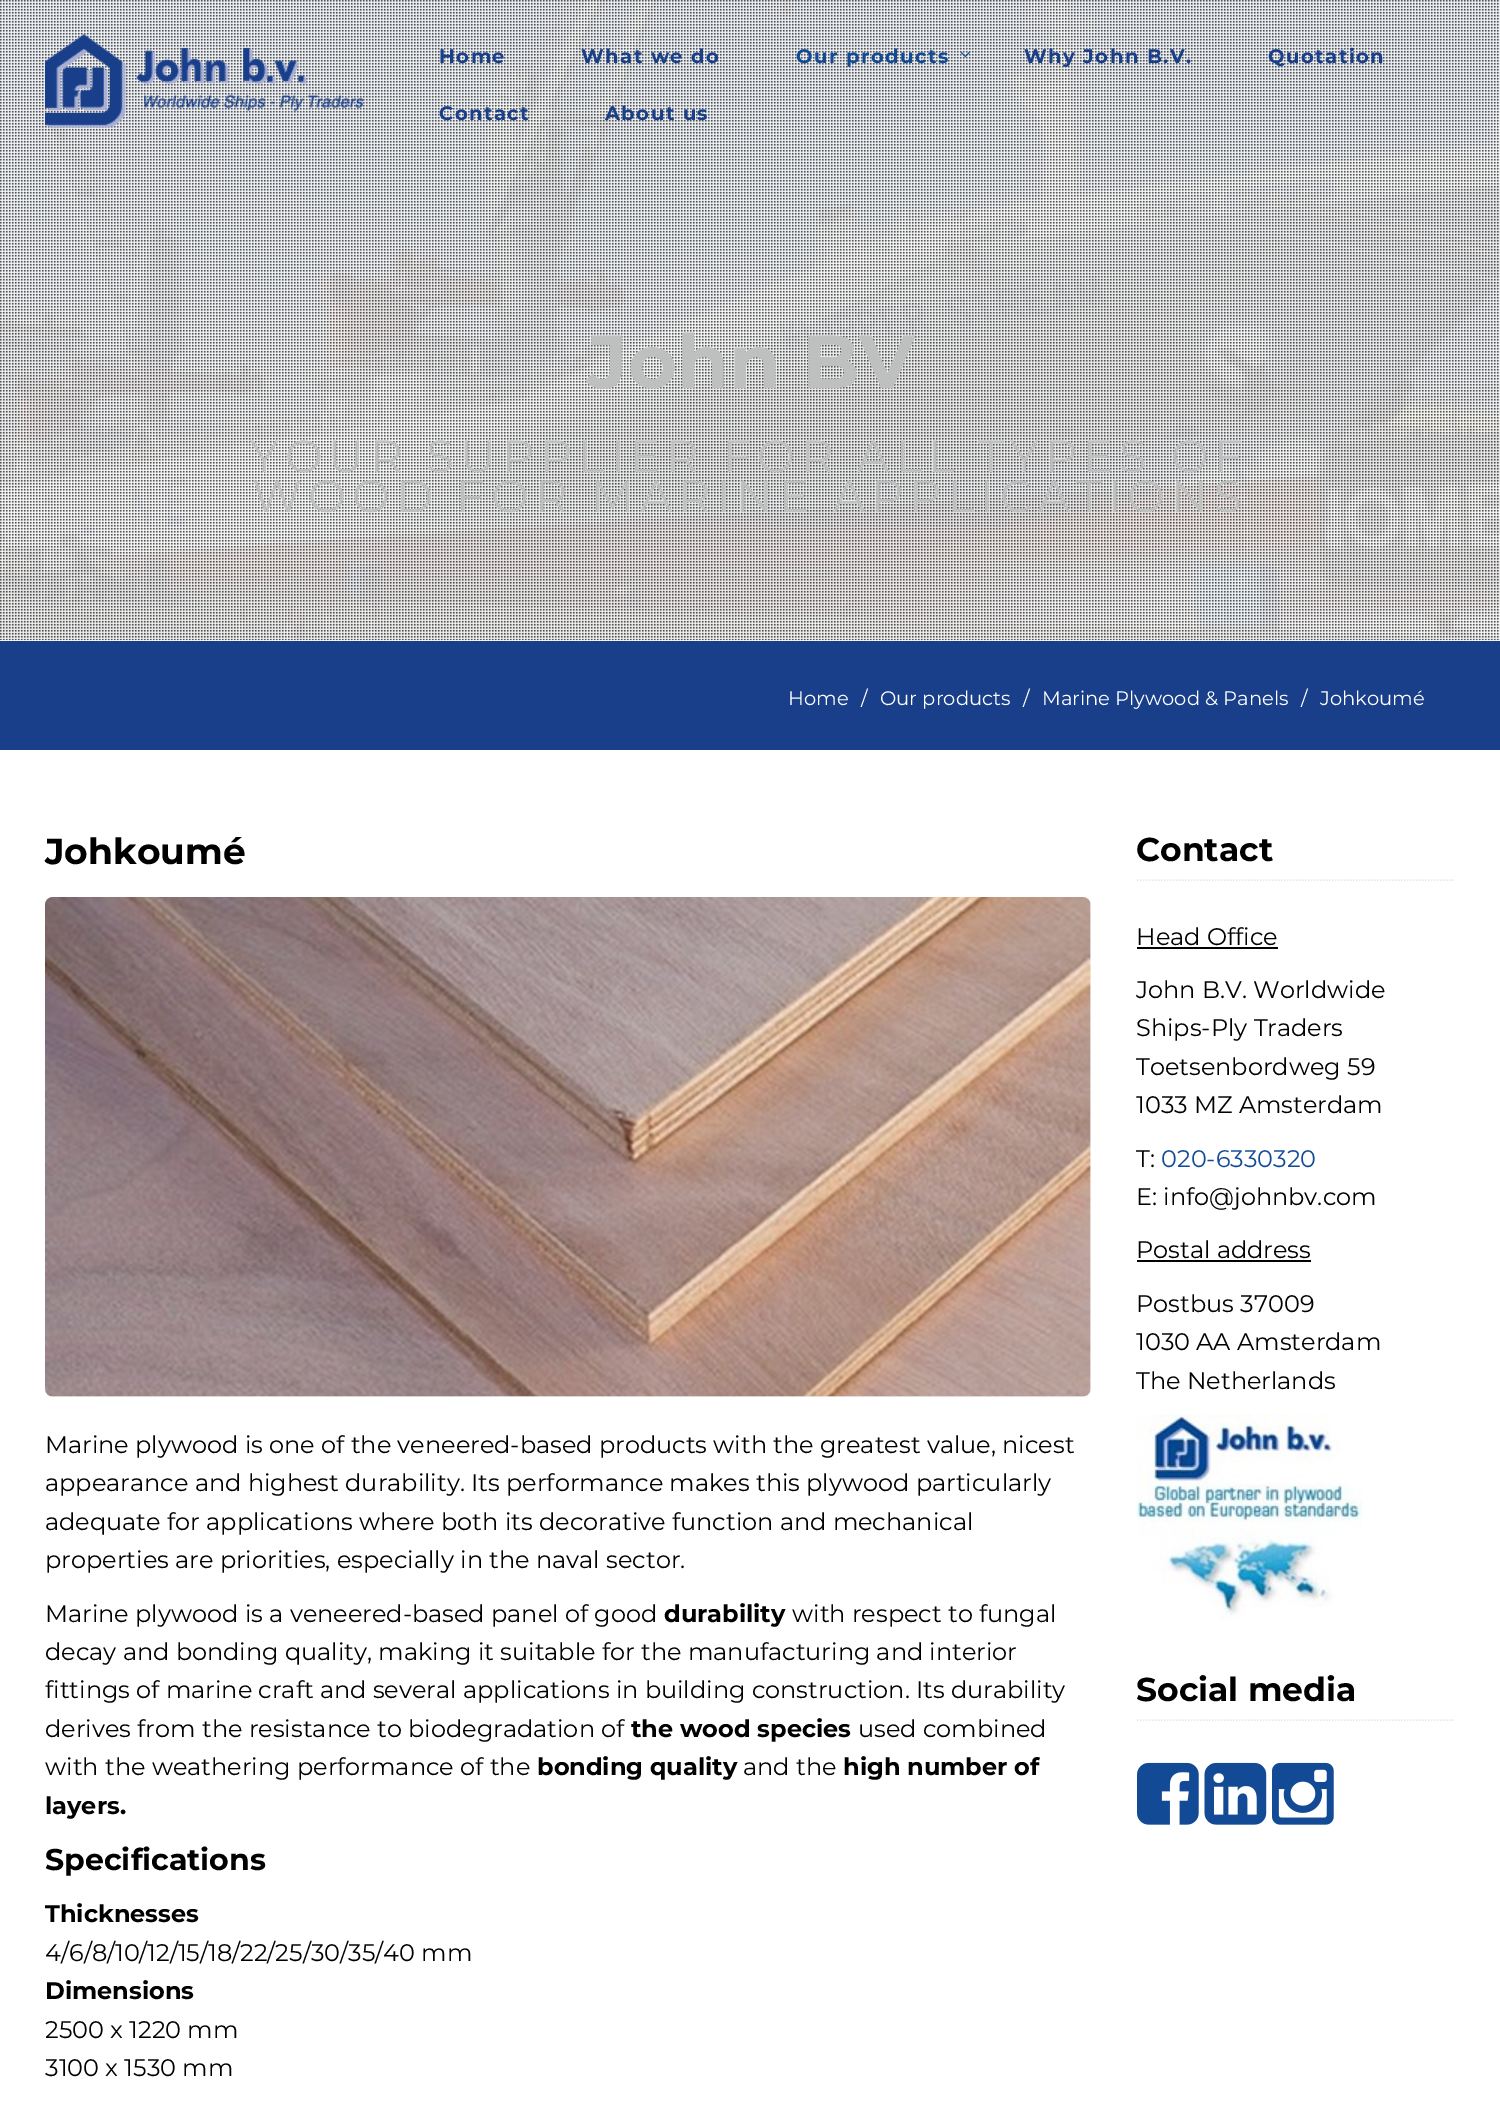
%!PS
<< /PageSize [1500 2101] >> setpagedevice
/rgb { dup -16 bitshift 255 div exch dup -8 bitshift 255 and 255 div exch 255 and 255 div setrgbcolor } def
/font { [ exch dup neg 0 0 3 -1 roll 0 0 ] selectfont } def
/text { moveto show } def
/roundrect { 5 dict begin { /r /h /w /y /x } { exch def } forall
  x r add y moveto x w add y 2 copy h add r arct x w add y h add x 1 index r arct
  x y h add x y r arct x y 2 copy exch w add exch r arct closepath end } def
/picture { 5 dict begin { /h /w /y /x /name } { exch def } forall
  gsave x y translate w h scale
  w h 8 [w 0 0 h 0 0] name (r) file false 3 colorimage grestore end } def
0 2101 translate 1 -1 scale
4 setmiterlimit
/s1 { /Montserrat-Thin 75 font 16#BEBFBF rgb } def
/s2 { /Montserrat-Regular 19.5 font 16#FFFFFF rgb } def
/s3 { /Montserrat-Thin 36 font 16#000000 rgb } def
/s4 { /Montserrat-Regular 24 font 16#000000 rgb } def
/s5 { /Montserrat-Thin 24 font 16#000000 rgb } def
/s6 { /Montserrat-Thin 30 font 16#000000 rgb } def
/s7 { /Montserrat-Thin 33 font 16#000000 rgb } def
/s8 { /Montserrat-Regular 24 font 16#134A96 rgb } def
16#FFFFFF rgb
0 0 1500 2101 rectfill
(pic3.raw) 0 0 1500 640 picture
(pic4.raw) 0 0 1500 641 picture
(pic1.raw) 45 34 318 94 picture
/Montserrat-Thin 19.5 font
16#193F8B rgb
439 63 moveto 1.5 0 (Home) ashow
581 63 moveto 1.5 0 (What we do) ashow
16#134A96 rgb
796 63 moveto 1.5 0 (Our products) ashow
(pic2.raw) 960 51 10 7 picture
16#193F8B rgb
1024 63 moveto 1.5 0 (Why John B.V.) ashow
1268 63 moveto 1.5 0 (Quotation) ashow
439 120 moveto 1.5 0 (Contact) ashow
605 120 moveto 1.5 0 (About us) ashow
s1
(John BV) 587 388 text
/Montserrat-Regular 45 font
250 472 moveto 6 0 (YOUR SUPPLIER FOR ALL TYPES OF) ashow
252 512 moveto 6 0 (WOOD FOR MARINE APPLICATIONS) ashow
16#193F8A rgb
0 641 1500 109 rectfill
s2
(Home) 788 705 text
(/) 861 705 text
(Our products) 880 705 text
(/) 1023 705 text
(Marine Plywood & Panels) 1042 705 text
(/) 1301 705 text
(Johkoumé) 1320 705 text
s3
(Johkoumé) 45 864 text
16#EEEEEE rgb
45 897 1046 500 8 roundrect fill
(pic5.raw) 45 897 1046 500 picture
s4
(Marine plywood is one of the veneered-based products with the greatest value, nicest) 45 1453 text
(appearance and highest durability. Its performance makes this plywood particularly) 45 1491 text
(adequate for applications where both its decorative function and mechanical) 45 1530 text
(properties are priorities, especially in the naval sector.) 45 1568 text
(Marine plywood is a veneered-based panel of good) 45 1622 text
s5
(durability) 664 1622 text
s4
(with respect to fungal) 792 1622 text
(decay and bonding quality, making it suitable for the manufacturing and interior) 45 1660 text
(fittings of marine craft and several applications in building construction. Its durability) 45 1698 text
(derives from the resistance to biodegradation of) 45 1737 text
s5
(the wood species) 631 1737 text
s4
(used combined) 858 1737 text
(with the weathering performance of the) 45 1775 text
s5
(bonding quality) 537 1775 text
s4
(and the) 743 1775 text
s5
(high number of) 843 1775 text
(layers.) 45 1814 text
s6
(Specifications) 45 1870 text
s5
(Thicknesses) 45 1922 text
s4
(4/6/8/10/12/15/18/22/25/30/35/40 mm) 45 1961 text
s5
(Dimensions) 45 1999 text
s4
(2500 x 1220 mm) 45 2038 text
(3100 x 1530 mm) 45 2076 text
16#E4E9F0 rgb
1.5 setlinewidth
[1.5 1.5] 0 setdash
1137 880 moveto 1455 880 lineto stroke
s7
(Contact) 1136 861 text
s4
(Head Office) 1136 945 text
1137 947 141 2 rectfill
(John B.V. Worldwide) 1136 998 text
(Ships-Ply Traders) 1136 1036 text
(Toetsenbordweg 59) 1136 1075 text
(1033 MZ Amsterdam) 1136 1113 text
(T:) 1136 1167 text
s8
(020-6330320) 1161 1167 text
s4
(E: info@johnbv.com) 1136 1205 text
(Postal address) 1136 1258 text
1137 1260 174 2 rectfill
(Postbus 37009) 1136 1312 text
(1030 AA Amsterdam) 1136 1350 text
(The Netherlands) 1136 1389 text
(pic6.raw) 1137 1414 225 205 picture
16#E4E9F0 rgb
1137 1720 moveto 1455 1720 lineto stroke
s7
(Social media) 1136 1701 text
(pic7.raw) 1137 1762 62 63 picture
(pic8.raw) 1204 1762 63 63 picture
(pic9.raw) 1272 1762 62 63 picture
showpage
